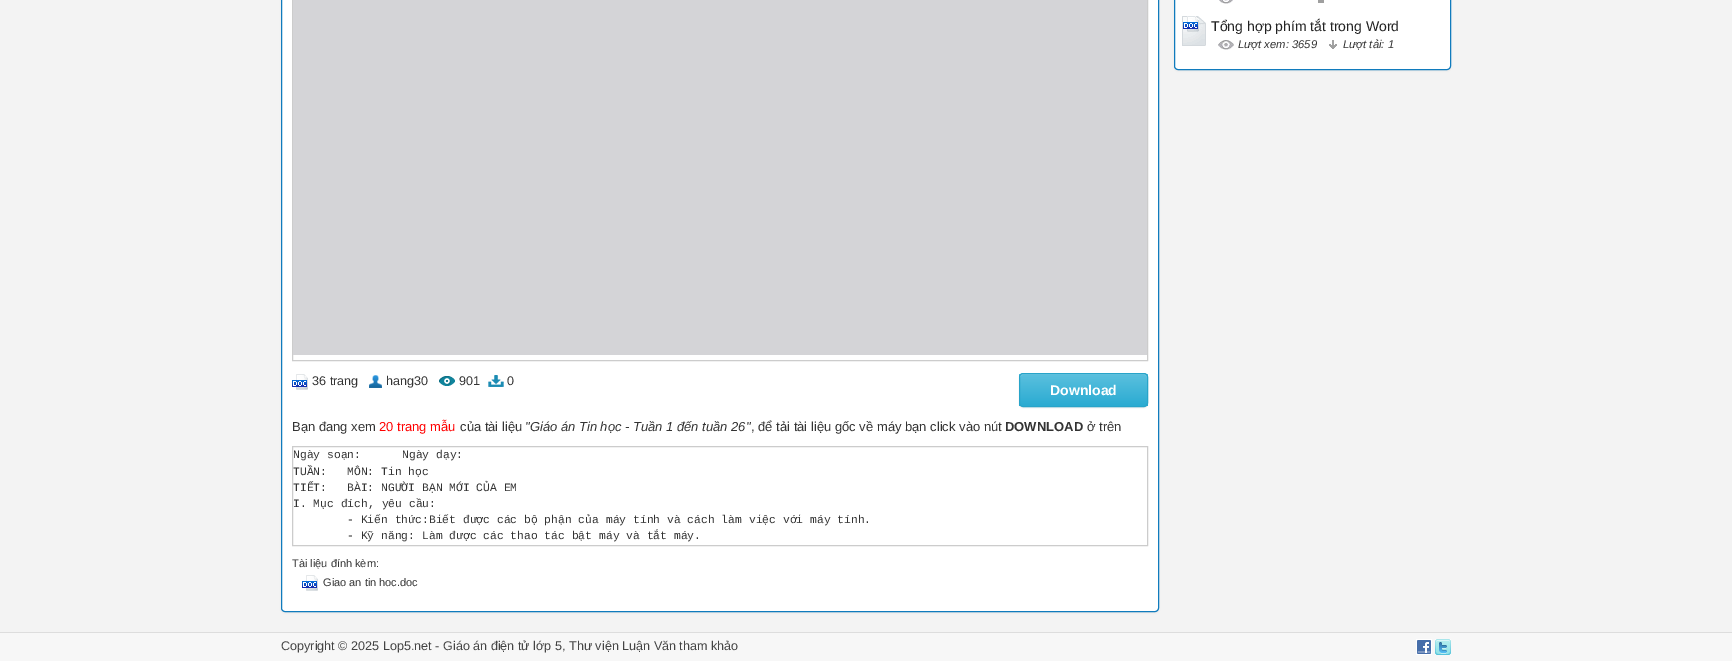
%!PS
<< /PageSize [1732 661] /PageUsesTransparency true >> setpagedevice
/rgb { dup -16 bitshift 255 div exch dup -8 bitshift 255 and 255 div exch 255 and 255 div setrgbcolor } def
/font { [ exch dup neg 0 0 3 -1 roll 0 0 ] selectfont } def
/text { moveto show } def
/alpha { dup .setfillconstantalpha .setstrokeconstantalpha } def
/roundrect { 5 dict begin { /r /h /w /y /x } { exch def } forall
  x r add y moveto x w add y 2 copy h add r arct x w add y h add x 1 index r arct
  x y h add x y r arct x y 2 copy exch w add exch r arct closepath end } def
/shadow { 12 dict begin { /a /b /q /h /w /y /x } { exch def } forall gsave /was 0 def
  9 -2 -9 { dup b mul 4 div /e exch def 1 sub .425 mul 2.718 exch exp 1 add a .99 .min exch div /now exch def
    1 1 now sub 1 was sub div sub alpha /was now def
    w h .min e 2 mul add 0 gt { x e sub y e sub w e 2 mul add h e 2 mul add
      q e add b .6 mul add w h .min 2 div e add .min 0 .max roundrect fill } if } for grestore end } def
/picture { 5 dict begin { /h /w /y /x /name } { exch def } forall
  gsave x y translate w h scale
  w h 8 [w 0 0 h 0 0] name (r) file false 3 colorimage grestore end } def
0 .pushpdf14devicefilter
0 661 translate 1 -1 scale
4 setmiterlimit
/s1 { /LiberationSans-Regular 14 font 16#222222 rgb } def
/s2 { /LiberationSans-Italic 11.25 font 16#333333 rgb } def
/s3 { /LiberationSans-Regular 12.6 font 16#333333 rgb } def
/s4 { /LiberationSans-Bold 14 font 16#FFFFFF rgb } def
/s5 { /LiberationSans-Regular 13 font 16#333333 rgb } def
/s6 { /LiberationSans-Regular 13 font 16#FF0000 rgb } def
/s7 { /LiberationSans-Italic 13 font 16#333333 rgb } def
/s8 { /LiberationSans-Bold 13 font 16#333333 rgb } def
/s9 { /LiberationMono-Regular 11.35 font 16#333333 rgb } def
/s10 { /LiberationSans-Regular 11 font 16#333333 rgb } def
/s11 { /LiberationSans-Regular 12.6 font 16#444444 rgb } def
16#F3F3F3 rgb
0 0 1732 661 rectfill
16#000000 rgb
1174 -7 277 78 4 1 0.05 shadow
16#FFFFFF rgb
1174.5 -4.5 276 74 3.5 roundrect gsave fill grestore
16#107BBD rgb
stroke
(pic1.raw) 1219 0 14 4 picture
16#9F9F9F rgb
1318 0 6 3 rectfill
(pic2.raw) 1182 16 24 30 picture
s1
(Tổng hợp phím tắt trong Word) 1211 31 text
(pic3.raw) 1218 40 16 10 picture
s2
(Lượt xem: 3659) 1238 48 text
(pic4.raw) 1329 40 8 9 picture
(Lượt tải: 1) 1343 48 text
16#000000 rgb
281 -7 878 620 4 1 0.05 shadow
16#FFFFFF rgb
281.5 -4.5 877 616 3.5 roundrect gsave fill grestore
16#107BBD rgb
stroke
16#CCCCCC rgb
292.5 -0.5 855 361 rectstroke
16#D4D4D7 rgb
293 0 854 355 rectfill
(pic5.raw) 292 374 16 16 picture
s3
(36 trang) 312 385 text
(pic6.raw) 369 375 13 13 picture
(hang30) 386 385 text
(pic7.raw) 439 376 16 10 picture
(901) 459 385 text
(pic8.raw) 488 375 16 12 picture
(0) 507 385 text
16#000000 rgb
1019 374 129 34 4 0.5 0.07 shadow
gsave
1019 373 129 34 4 roundrect clip newpath
gsave 1019 374 moveto 1148 374 lineto 1148 406 lineto 1019 406 lineto closepath clip newpath
<< /ShadingType 2 /ColorSpace /DeviceRGB /Coords [1084 374 1084 406] /Extend [true true] /Function << /FunctionType 2 /Domain [0 1] /C0 [0.357 0.753 0.871] /C1 [0.165 0.671 0.824] /N 1 >> >> shfill grestore
grestore
16#73C9E3 rgb
1023 375 moveto 1144 375 lineto 1146 375 1147 376 1147 378 curveto 1147 377 lineto 1147 375 1146 374 1144 374 curveto 1023 374 lineto 1021 374 1020 375 1020 377 curveto 1020 378 lineto 1020 376 1021 375 1023 375 curveto closepath fill
16#28A4C9 rgb
1019.5 373.5 128 33 3.5 roundrect stroke
s4
(Download) 1050 395 text
s5
(Bạn đang xem) 292 431 text
s6
(20 trang mẫu) 379 431 text
s5
(của tài liệu) 460 431 text
s7
("Giáo án Tin học - Tuần 1 đến tuần 26") 525 431 text
s5
(, để tải tài liệu gốc về máy bạn click vào nút) 751 431 text
s8
(DOWNLOAD) 1005 431 text
s5
(ở trên) 1087 431 text
16#CCCCCC rgb
292.5 446.5 855 99 rectstroke
s9
(Ngày soạn:) 293 458 text
(Ngày dạy:) 402 458 text
(TUẦN:) 293 475 text
(MÔN: Tin học) 347 475 text
(TIẾT:) 293 491 text
(BÀI: NGƯỜI BẠN MỚI CỦA EM) 347 491 text
(I. Mục đích, yêu cầu:) 293 507 text
(- Kiến thức:Biết được các bộ phận của máy tính và cách làm việc với máy tính.) 347 523 text
(- Kỹ năng: Làm được các thao tác bật máy và tắt máy.) 347 539 text
s10
(Tài liệu đính kèm:) 292 567 text
(pic5.raw) 302 575 16 16 picture
(Giao an tin hoc.doc) 323 586 text
16#F7F7F7 rgb
0 633 1732 28 rectfill
16#DDDDDD rgb
0 632 1732 1 rectfill
s11
(Copyright © 2025 Lop5.net - Giáo án điện tử lớp 5, Thư viện Luận Văn tham khảo) 281 650 text
(pic9.raw) 1416 639 16 16 picture
(pic10.raw) 1435 639 16 16 picture
.poppdf14devicefilter showpage
